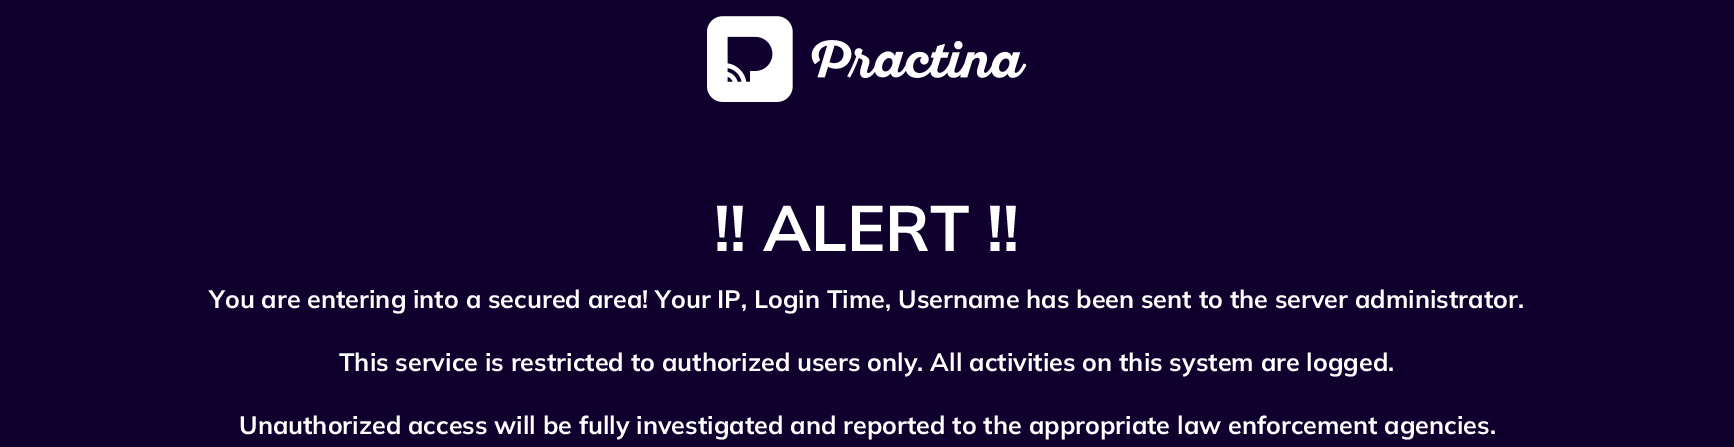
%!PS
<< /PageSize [1734 447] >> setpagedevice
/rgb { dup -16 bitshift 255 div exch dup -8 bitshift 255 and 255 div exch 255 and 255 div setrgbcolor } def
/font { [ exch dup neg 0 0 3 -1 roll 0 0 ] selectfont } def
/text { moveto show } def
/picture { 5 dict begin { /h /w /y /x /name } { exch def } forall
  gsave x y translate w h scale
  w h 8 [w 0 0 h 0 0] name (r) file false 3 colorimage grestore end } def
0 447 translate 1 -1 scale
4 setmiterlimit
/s1 { /Mulish-ExtraLight 64 font 16#FFFFFF rgb } def
/s2 { /Mulish-ExtraLight 25 font 16#FFFFFF rgb } def
16#10002E rgb
0 0 1734 447 rectfill
(pic1.raw) 707 16 320 86 picture
s1
(!! ALERT !!) 714 251 text
s2
(You are entering into a secured area! Your IP, Login Time, Username has been sent to the server administrator.) 209 308 text
(This service is restricted to authorized users only. All activities on this system are logged.) 339 371 text
(Unauthorized access will be fully investigated and reported to the appropriate law enforcement agencies.) 239 434 text
showpage
